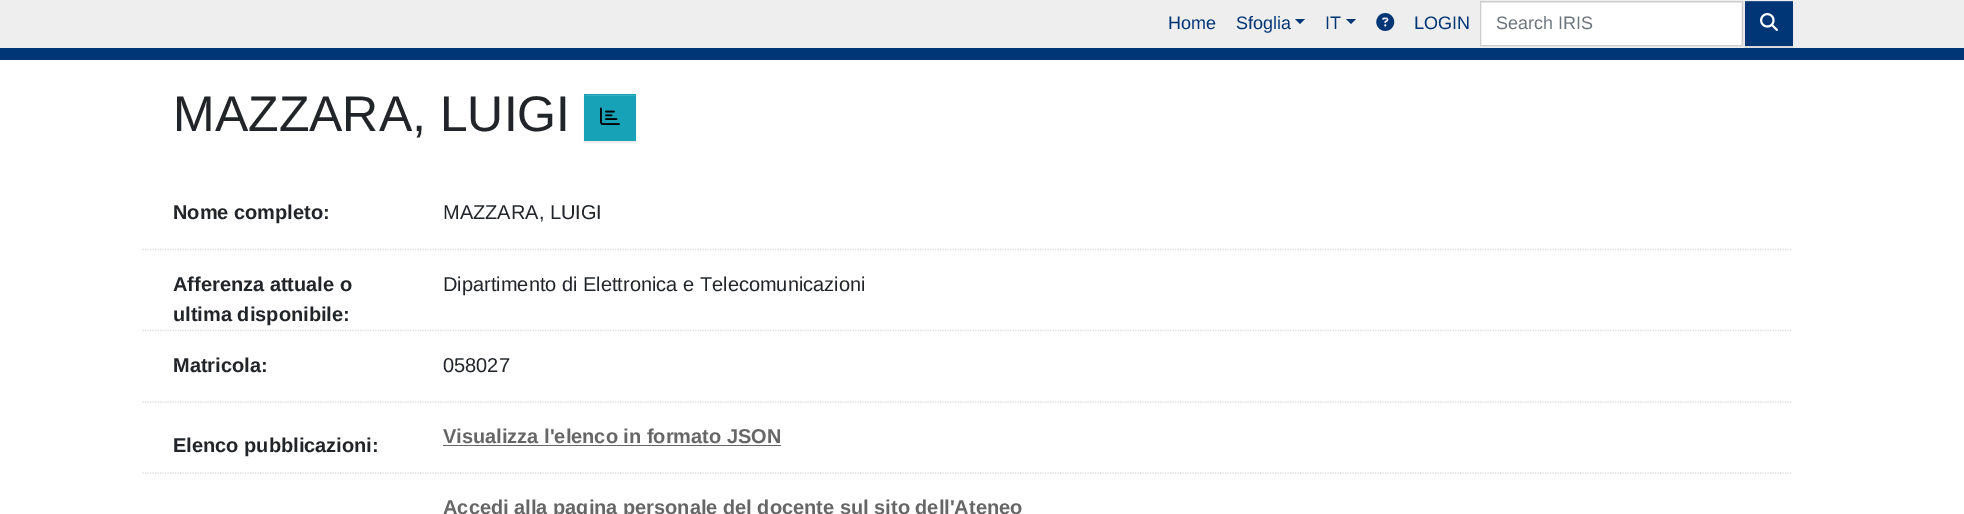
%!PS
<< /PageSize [1964 514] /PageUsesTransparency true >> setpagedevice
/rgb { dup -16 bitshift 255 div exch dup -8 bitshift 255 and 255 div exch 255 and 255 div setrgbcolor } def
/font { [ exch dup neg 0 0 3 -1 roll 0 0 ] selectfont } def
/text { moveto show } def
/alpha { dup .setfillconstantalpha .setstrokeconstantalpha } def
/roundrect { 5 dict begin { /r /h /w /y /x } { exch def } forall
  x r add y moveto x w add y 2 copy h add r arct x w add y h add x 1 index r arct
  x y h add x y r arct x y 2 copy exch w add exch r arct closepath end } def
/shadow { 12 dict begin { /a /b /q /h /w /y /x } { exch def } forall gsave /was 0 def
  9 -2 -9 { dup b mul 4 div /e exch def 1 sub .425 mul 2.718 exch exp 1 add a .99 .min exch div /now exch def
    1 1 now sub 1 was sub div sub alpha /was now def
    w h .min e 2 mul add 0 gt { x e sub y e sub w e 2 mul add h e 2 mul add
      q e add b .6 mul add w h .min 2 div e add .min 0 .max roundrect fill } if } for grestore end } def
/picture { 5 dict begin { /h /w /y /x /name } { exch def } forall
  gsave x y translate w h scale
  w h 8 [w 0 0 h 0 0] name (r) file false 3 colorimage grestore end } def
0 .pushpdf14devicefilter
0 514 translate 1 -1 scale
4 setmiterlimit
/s1 { /LiberationSans-Regular 18 font 16#003576 rgb } def
/s2 { /LiberationSans-Regular 18 font 16#6C757D rgb } def
/s3 { /LiberationSans-Regular 50 font 16#212529 rgb } def
/s4 { /LiberationSans-Bold 20 font 16#212529 rgb } def
/s5 { /LiberationSans-Regular 20 font 16#212529 rgb } def
/s6 { /LiberationSans-Bold 20 font 16#666666 rgb } def
16#FFFFFF rgb
0 0 1964 514 rectfill
16#EEEEEE rgb
0 0 1964 48 rectfill
16#003576 rgb
0 48 1964 12 rectfill
s1
(Home) 1168 29 text
(Sfoglia) 1236 29 text
1295 19 moveto 1305 19 lineto 1300 24 lineto closepath fill
(IT) 1325 29 text
1346 19 moveto 1356 19 lineto 1351 24 lineto closepath fill
(pic1.raw) 1376 13 19 18 picture
(LOGIN) 1414 29 text
16#FFFFFF rgb
1481 3 260 42 rectfill
16#CCCCCC rgb
1480.5 1.5 262 44 rectstroke
s2
(Search IRIS) 1496 29 text
16#000000 rgb
1745 3 48 45 0 0.5 0.07 shadow
16#003576 rgb
1745 2 48 44 rectfill
16#26538B rgb
1745 1 48 1 rectfill
(pic2.raw) 1760 13 18 18 picture
s3
(MAZZARA, LUIGI) 173 131 text
16#000000 rgb
584 95 52 48 0 0.5 0.07 shadow
16#17A2B8 rgb
584 94 52 47 rectfill
16#3AB0C3 rgb
585 95 50 1 rectfill
(pic3.raw) 600 107 20 18 picture
16#DDDDDD rgb
1.2 setlinewidth
[1.25 1.25] 0 setdash
142.5 249.5 moveto 1792.5 249.5 lineto stroke
s4
(Nome completo:) 173 219 text
s5
(MAZZARA, LUIGI) 443 219 text
16#DDDDDD rgb
142.5 330.5 moveto 1792.5 330.5 lineto stroke
s4
(Afferenza attuale o) 173 291 text
(ultima disponibile:) 173 321 text
s5
(Dipartimento di Elettronica e Telecomunicazioni) 443 291 text
16#DDDDDD rgb
142.5 402 moveto 1792.5 402 lineto stroke
s4
(Matricola:) 173 372 text
s5
(058027) 443 372 text
16#DDDDDD rgb
142.5 473 moveto 1792.5 473 lineto stroke
s4
(Elenco pubblicazioni:) 173 452 text
s6
(Visualizza l'elenco in formato JSON) 443 443 text
443 445 338 1 rectfill
(Accedi alla pagina personale del docente sul sito dell'Ateneo) 443 514 text
.poppdf14devicefilter showpage
